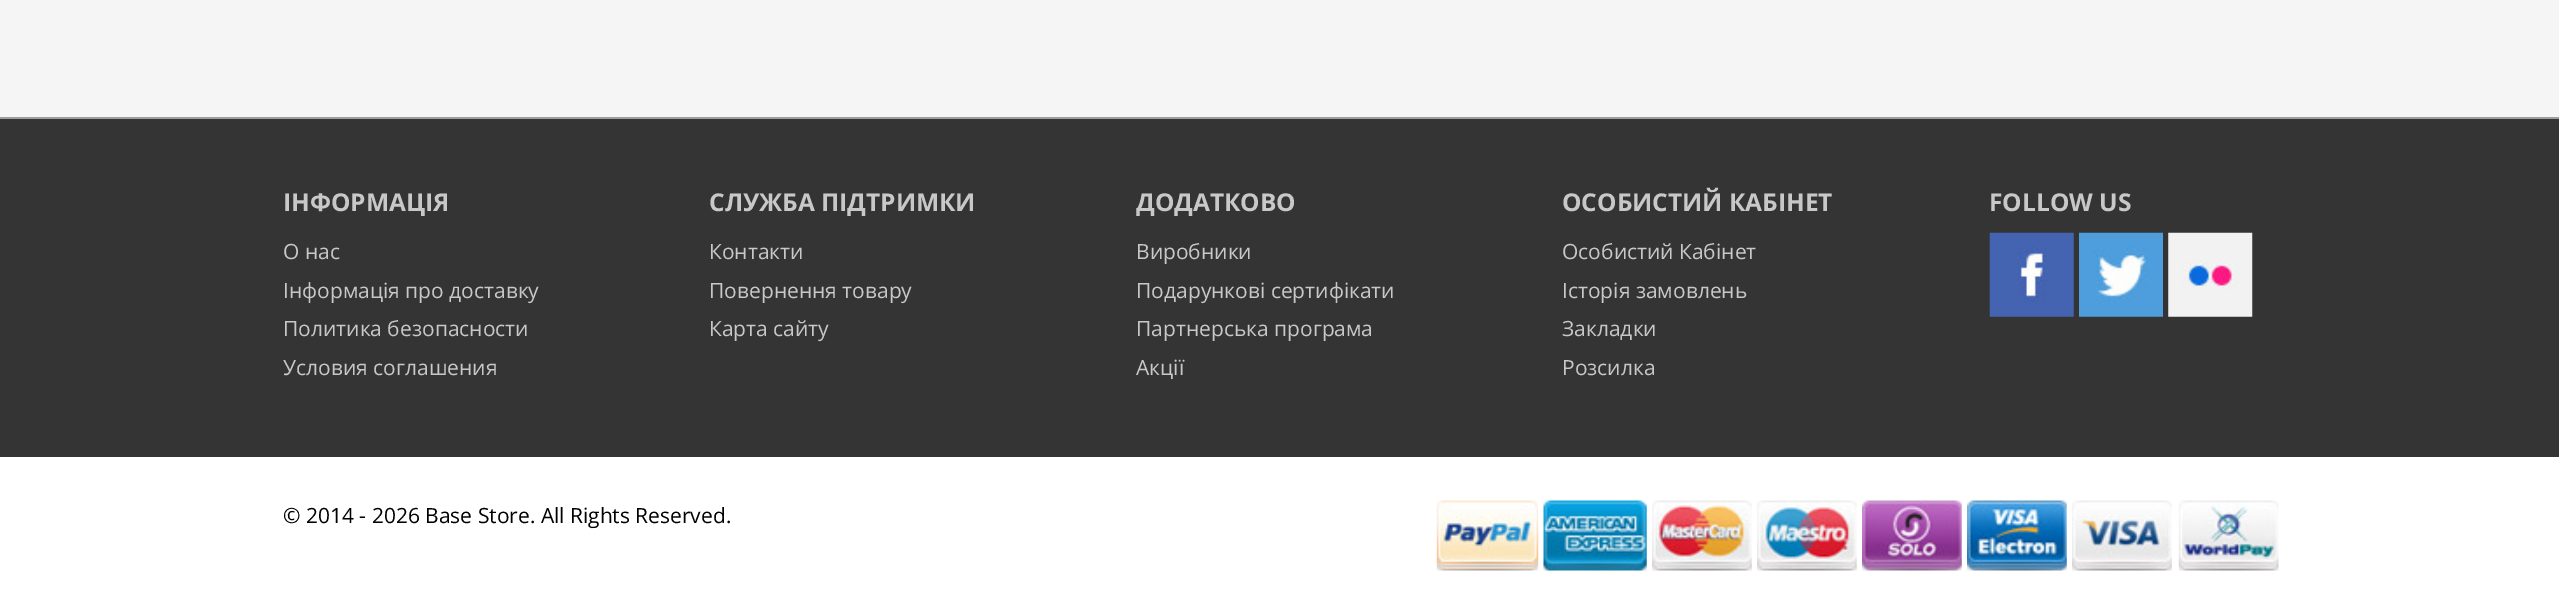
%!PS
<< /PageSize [2559 614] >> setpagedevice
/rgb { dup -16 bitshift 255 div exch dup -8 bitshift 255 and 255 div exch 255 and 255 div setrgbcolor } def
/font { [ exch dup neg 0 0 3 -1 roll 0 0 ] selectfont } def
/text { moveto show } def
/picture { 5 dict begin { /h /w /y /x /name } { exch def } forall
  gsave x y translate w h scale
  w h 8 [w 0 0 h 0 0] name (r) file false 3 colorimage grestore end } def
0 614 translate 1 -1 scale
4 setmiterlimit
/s1 { /OpenSans-Bold 24.5 font 16#C8C8C8 rgb } def
/s2 { /OpenSans-Regular 21 font 16#C8C8C8 rgb } def
/s3 { /OpenSans-Regular 21 font 16#000000 rgb } def
16#F5F5F5 rgb
0 0 2559 614 rectfill
16#9E9E9E rgb
0 117 2559 2 rectfill
16#343434 rgb
0 119 2559 338 rectfill
s1
(ІНФОРМАЦІЯ) 283 211 text
s2
(О нас) 283 259 text
(Інформація про доставку) 283 298 text
(Политика безопасности) 283 336 text
(Условия соглашения) 283 375 text
s1
(СЛУЖБА ПІДТРИМКИ) 709 211 text
s2
(Контакти) 709 259 text
(Повернення товару) 709 298 text
(Карта сайту) 709 336 text
s1
(ДОДАТКОВО) 1136 211 text
s2
(Виробники) 1136 259 text
(Подарункові сертифікати) 1136 298 text
(Партнерська програма) 1136 336 text
(Акції) 1136 375 text
s1
(ОСОБИСТИЙ КАБІНЕТ) 1562 211 text
s2
(Особистий Кабінет) 1562 259 text
(Історія замовлень) 1562 298 text
(Закладки) 1562 336 text
(Розсилка) 1562 375 text
s1
(FOLLOW US) 1989 211 text
(pic1.raw) 1989 232 85 85 picture
(pic2.raw) 2079 232 84 85 picture
(pic3.raw) 2168 232 85 85 picture
16#FFFFFF rgb
0 457 2559 157 rectfill
s3
(© 2014 - 2026 Base Store. All Rights Reserved.) 283 523 text
(pic4.raw) 1436 500 103 71 picture
(pic5.raw) 1543 500 104 71 picture
(pic6.raw) 1652 500 100 71 picture
(pic7.raw) 1757 500 100 71 picture
(pic8.raw) 1862 500 100 71 picture
(pic9.raw) 1967 500 100 71 picture
(pic10.raw) 2072 500 100 71 picture
(pic11.raw) 2178 500 101 71 picture
showpage
